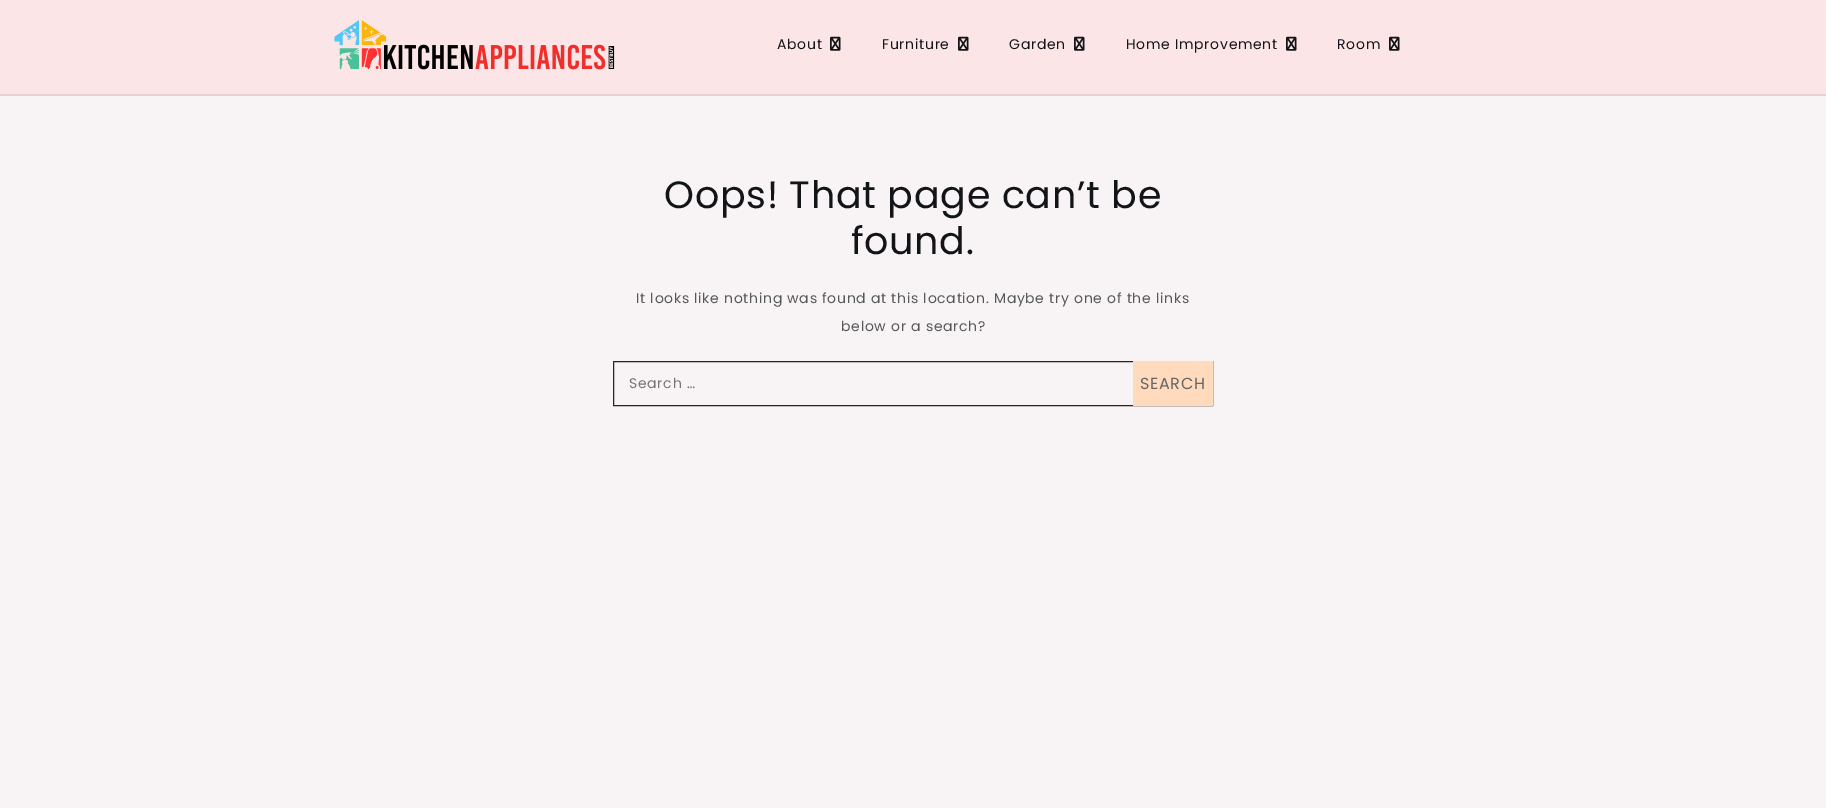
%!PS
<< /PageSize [1826 808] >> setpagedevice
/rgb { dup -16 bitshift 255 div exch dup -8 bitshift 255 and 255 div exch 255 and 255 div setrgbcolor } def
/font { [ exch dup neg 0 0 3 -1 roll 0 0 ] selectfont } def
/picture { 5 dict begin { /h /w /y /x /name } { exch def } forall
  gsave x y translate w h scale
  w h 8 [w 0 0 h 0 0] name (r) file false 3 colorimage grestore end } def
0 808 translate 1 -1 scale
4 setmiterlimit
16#F8F3F4 rgb
0 0 1826 808 rectfill
16#FCE5E6 rgb
0 0 1826 94 rectfill
16#E6D1D2 rgb
0 94 1826 2 rectfill
(pic1.raw) 334 20 281 50 picture
/Poppins-Regular 14 font
16#121418 rgb
777 49 moveto 0.7 0 (About) ashow
(pic2.raw) 830 36 11 15 picture
882 49 moveto 0.7 0 (Furniture) ashow
(pic2.raw) 958 36 11 15 picture
1009 49 moveto 0.7 0 (Garden) ashow
(pic2.raw) 1074 36 11 15 picture
1126 49 moveto 0.7 0 (Home Improvement) ashow
(pic2.raw) 1286 36 11 15 picture
1337 49 moveto 0.7 0 (Room) ashow
(pic2.raw) 1389 36 11 15 picture
/Poppins-Regular 38 font
664 208 moveto 0.7 0 (Oops! That page can’t be) ashow
851 254 moveto 0.7 0 (found.) ashow
/Poppins-Regular 14 font
16#565859 rgb
636 303 moveto 0.7 0 (It looks like nothing was found at this location. Maybe try one of the links) ashow
841 331 moveto 0.7 0 (below or a search?) ashow
16#262525 rgb
613.5 361.5 599 44 rectstroke
16#757575 rgb
629 388 moveto 0.7 0 (Search …) ashow
16#FFDABC rgb
1133 361 80 45 rectfill
/Poppins-Regular 16 font
16#666666 rgb
1140 389 moveto 0.7 0 (SEARCH) ashow
showpage
